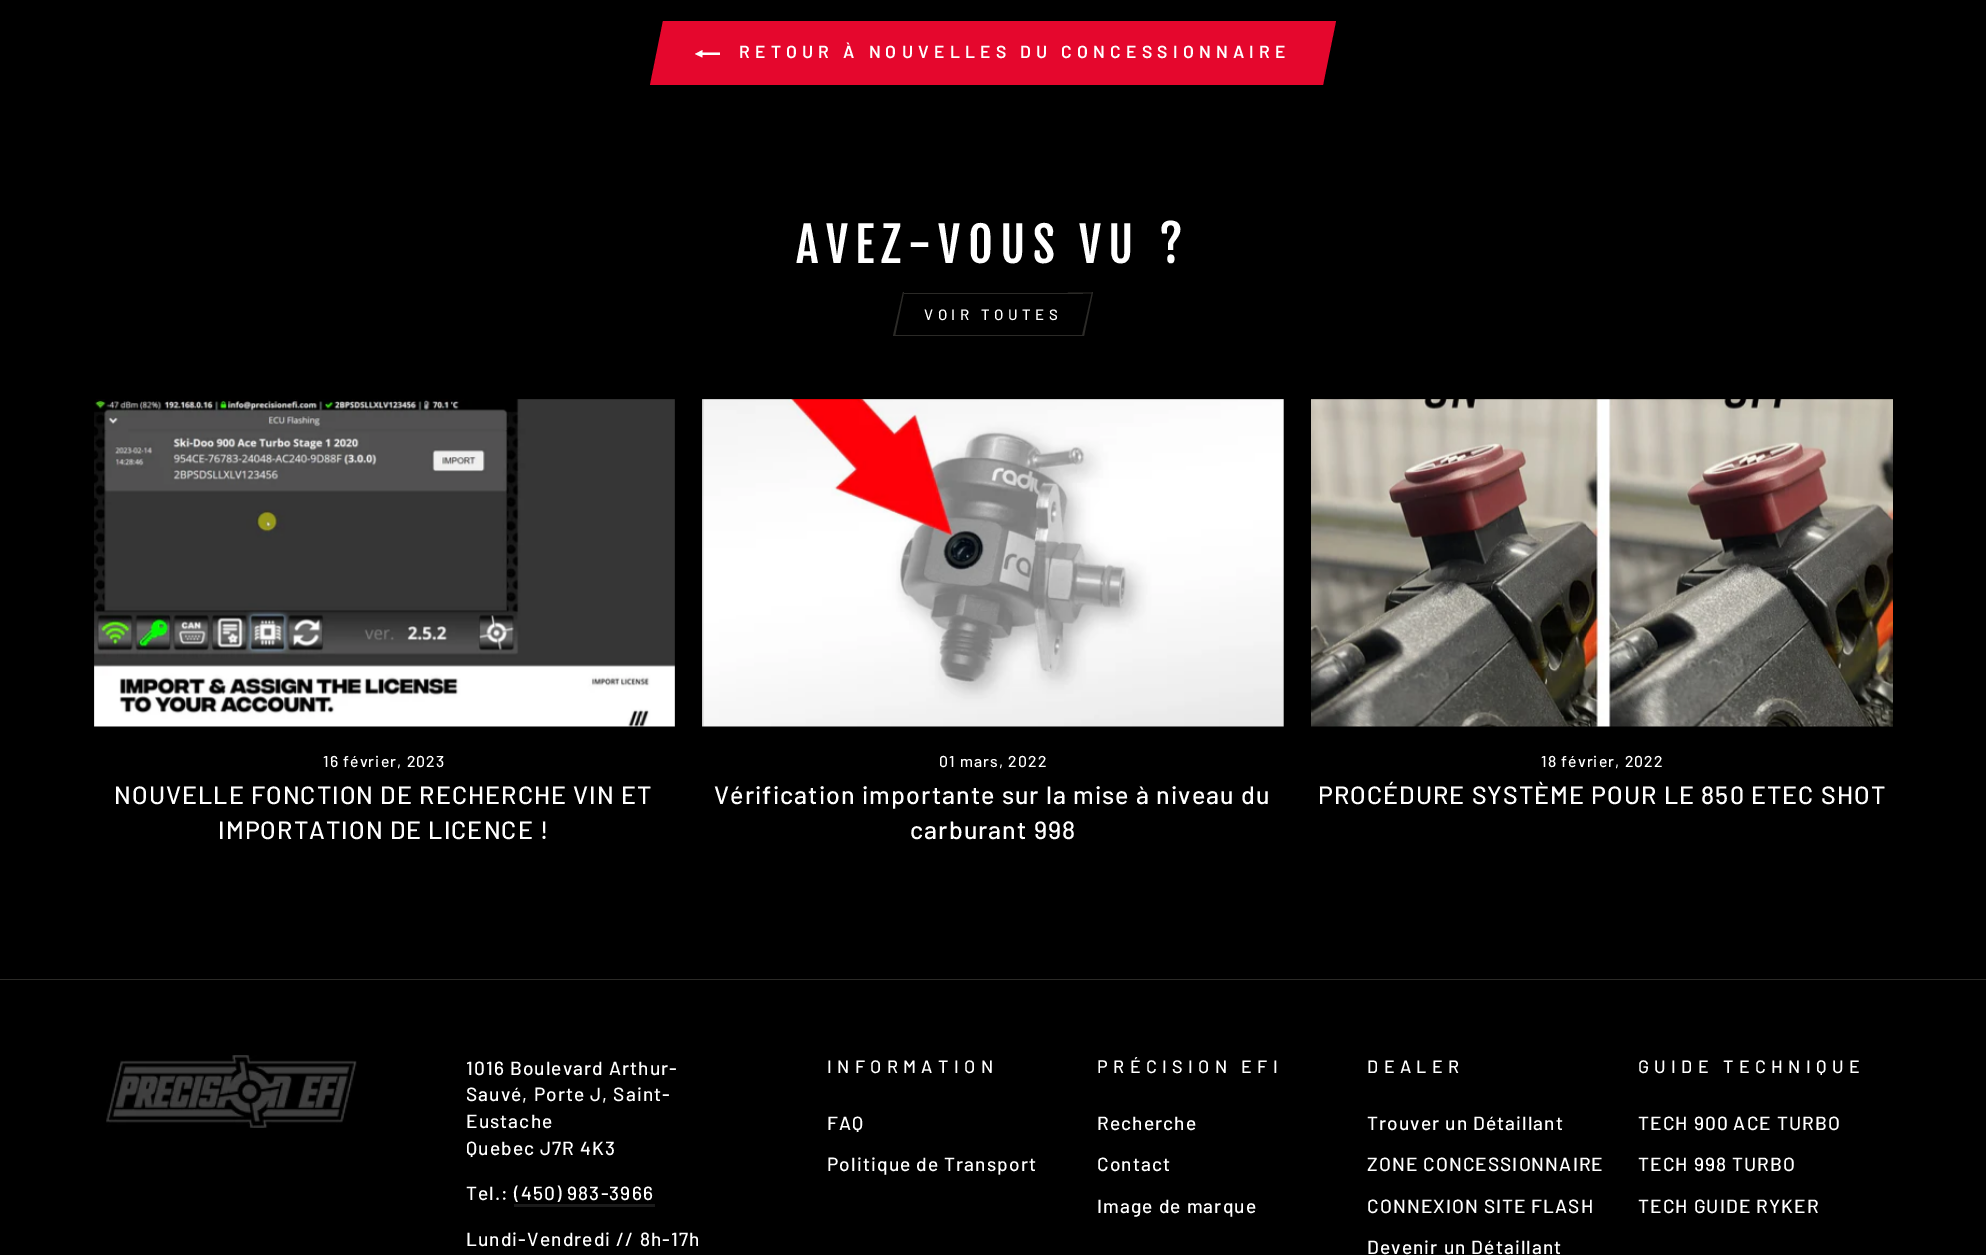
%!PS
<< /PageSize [1986 1255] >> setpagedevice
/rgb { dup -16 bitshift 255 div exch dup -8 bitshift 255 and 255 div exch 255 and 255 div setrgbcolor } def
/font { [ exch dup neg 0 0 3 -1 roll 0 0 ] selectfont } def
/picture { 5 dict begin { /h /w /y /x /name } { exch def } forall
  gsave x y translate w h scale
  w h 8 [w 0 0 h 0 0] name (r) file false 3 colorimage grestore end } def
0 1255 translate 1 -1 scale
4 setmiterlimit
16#000000 rgb
0 0 1986 1255 rectfill
16#E5072D rgb
675 21 636 64 rectfill
663 21 moveto 688 21 lineto 675 85 lineto 650 85 lineto closepath fill
16#FFFFFF rgb
720 52.5 moveto 720 55 lineto 702.5 55 lineto 702.5 57.5 lineto 695 54 lineto 702.5 50 lineto 702.5 52.5 lineto closepath fill
/Barlow-SemiBold 17.5 font
739 58 moveto 5.25 0 (RETOUR À NOUVELLES DU CONCESSIONNAIRE) ashow
16#E5072D rgb
1311 21 moveto 1336 21 lineto 1323 85 lineto 1298 85 lineto closepath fill
/FjallaOne-Regular 47.75 font
16#FFFFFF rgb
796 263 moveto 7.2 0 (AVEZ-VOUS VU ?) ashow
16#2B2A27 rgb
904 293 179 1 rectfill
894 335 189 1 rectfill
903 292 moveto 904 292 lineto 895 336 lineto 893 336 lineto closepath fill
/Barlow-Medium 15 font
16#FFFFFF rgb
924 320 moveto 4.5 0 (VOIR TOUTES) ashow
16#2B2A27 rgb
1068 292.5 moveto 1093 292.5 lineto 1092.5 293.5 lineto 1067.5 293.5 lineto closepath fill
1092 292 moveto 1093 292 lineto 1084 336 lineto 1082 336 lineto closepath fill
(pic1.raw) 94 399 581 328 picture
/Barlow-Medium 15.75 font
16#FFFFFF rgb
323 767 moveto 1.1 0 (16 février, 2023) ashow
/Barlow-Medium 25 font
114 804 moveto 1.1 0 (NOUVELLE FONCTION DE RECHERCHE VIN ET) ashow
218 839 moveto 1.1 0 (IMPORTATION DE LICENCE !) ashow
(pic2.raw) 702 399 582 328 picture
/Barlow-Medium 15.75 font
939 767 moveto 1.1 0 (01 mars, 2022) ashow
/Barlow-Medium 25 font
714 804 moveto 1.1 0 (Vérification importante sur la mise à niveau du) ashow
910 839 moveto 1.1 0 (carburant 998) ashow
(pic3.raw) 1311 399 582 328 picture
/Barlow-Medium 15.75 font
1541 767 moveto 1.1 0 (18 février, 2022) ashow
/Barlow-Medium 25 font
1318 804 moveto 1.1 0 (PROCÉDURE SYSTÈME POUR LE 850 ETEC SHOT) ashow
16#2B2A27 rgb
0 979 1986 1 rectfill
(pic4.raw) 106 1055 251 73 picture
/Barlow-Medium 19.1 font
16#FFFFFF rgb
466 1075 moveto 1.1 0 (1016 Boulevard Arthur-) ashow
466 1101 moveto 1.1 0 (Sauvé, Porte J, Saint-) ashow
466 1128 moveto 1.1 0 (Eustache) ashow
466 1155 moveto 1.1 0 (Quebec J7R 4K3) ashow
466 1200 moveto 1.1 0 (Tel.: \(450\) 983-3966) ashow
16#1A1A1A rgb
514 1204 141 3 rectfill
16#FFFFFF rgb
466 1246 moveto 1.1 0 (Lundi-Vendredi // 8h-17h) ashow
/Barlow-Medium 18 font
827 1073 moveto 5.4 0 (INFORMATION) ashow
/Barlow-Medium 19.1 font
827 1130 moveto 1.1 0 (FAQ) ashow
827 1171 moveto 1.1 0 (Politique de Transport) ashow
/Barlow-Medium 18 font
1097 1073 moveto 5.4 0 (PRÉCISION EFI) ashow
/Barlow-Medium 19.1 font
1097 1130 moveto 1.1 0 (Recherche) ashow
1097 1171 moveto 1.1 0 (Contact) ashow
1097 1213 moveto 1.1 0 (Image de marque) ashow
/Barlow-Medium 18 font
1367 1073 moveto 5.4 0 (DEALER) ashow
/Barlow-Medium 19.1 font
1367 1130 moveto 1.1 0 (Trouver un Détaillant) ashow
1367 1171 moveto 1.1 0 (ZONE CONCESSIONNAIRE) ashow
1367 1213 moveto 1.1 0 (CONNEXION SITE FLASH) ashow
1367 1254 moveto 1.1 0 (Devenir un Détaillant) ashow
/Barlow-Medium 18 font
1638 1073 moveto 5.4 0 (GUIDE TECHNIQUE) ashow
/Barlow-Medium 19.1 font
1638 1130 moveto 1.1 0 (TECH 900 ACE TURBO) ashow
1638 1171 moveto 1.1 0 (TECH 998 TURBO) ashow
1638 1213 moveto 1.1 0 (TECH GUIDE RYKER) ashow
showpage
